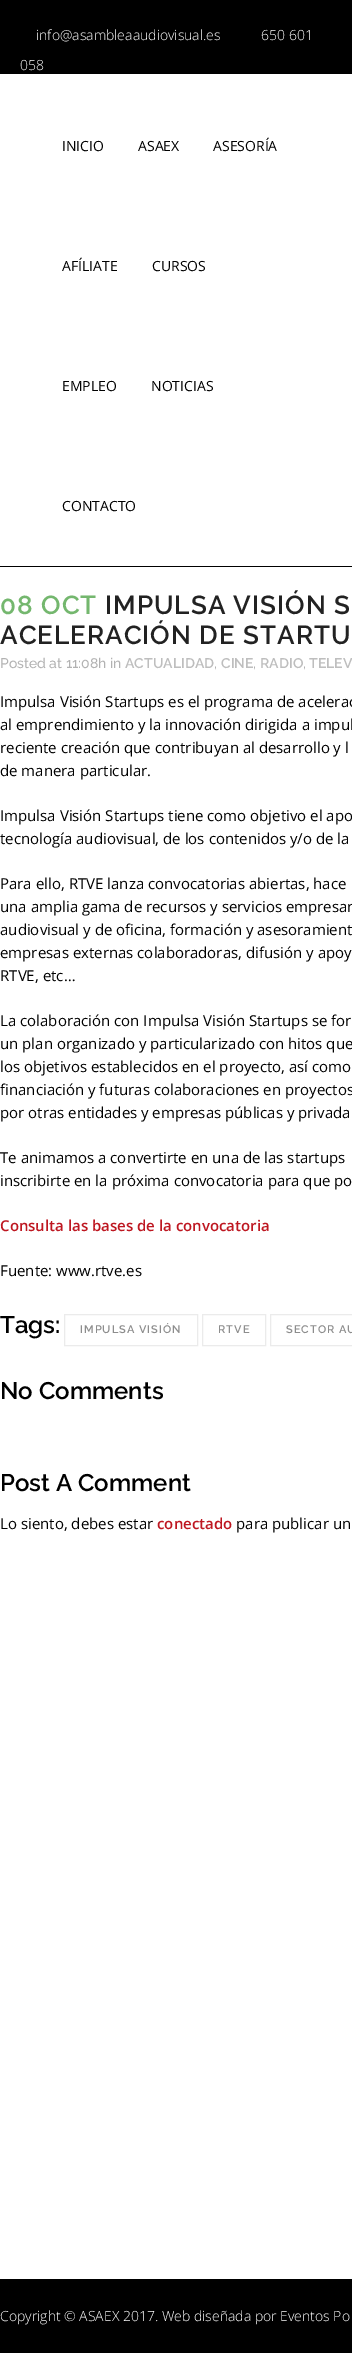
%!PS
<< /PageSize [352 2353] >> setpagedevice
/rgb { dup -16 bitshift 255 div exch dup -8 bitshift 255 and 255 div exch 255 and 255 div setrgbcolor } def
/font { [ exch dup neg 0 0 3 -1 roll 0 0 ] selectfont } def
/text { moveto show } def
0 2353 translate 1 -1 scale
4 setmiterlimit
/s1 { /OpenSans-Light 14 font 16#FFFFFF rgb } def
/s2 { /OpenSans-Regular 14 font 16#000000 rgb } def
/s3 { /Raleway-Medium 14 font 16#B2B2B2 rgb } def
/s4 { /Raleway-SemiBold 14 font 16#BEBEBE rgb } def
/s5 { /OpenSans-Regular 15 font 16#000000 rgb } def
/s6 { /OpenSans-SemiBold 15 font 16#BE1721 rgb } def
/s7 { /Raleway-SemiBold 24 font 16#000000 rgb } def
16#FFFFFF rgb
0 0 352 2353 rectfill
16#000000 rgb
0 0 352 74 rectfill
s1
(info@asambleaaudiovisual.es) 36 40 text
(650 601) 261 40 text
(058) 20 70 text
16#000000 rgb
0 566 352 1 rectfill
s2
(INICIO) 62 151 text
(ASAEX) 138 151 text
(ASESORÍA) 213 151 text
(AFÍLIATE) 62 271 text
(CURSOS) 152 271 text
(EMPLEO) 62 391 text
(NOTICIAS) 151 391 text
(CONTACTO) 62 511 text
/Raleway-SemiBold 26 font
16#74B76E rgb
0 614 moveto 1 0 (08 OCT) ashow
16#222222 rgb
105 614 moveto 1 0 (IMPULSA VISIÓN S) ashow
0 644 moveto 1 0 (ACELERACIÓN DE STARTU) ashow
s3
(Posted at 11:08h in) 0 668 text
s4
(ACTUALIDAD) 125 668 text
s3
(,) 214 668 text
s4
(CINE) 221 668 text
s3
(,) 253 668 text
s4
(RADIO) 260 668 text
s3
(,) 303 668 text
s4
(TELEV) 309 668 text
s5
(Impulsa Visión Startups es el programa de acelerac) 0 707 text
(al emprendimiento y la innovación dirigida a impul) 0 730 text
(reciente creación que contribuyan al desarrollo y l) 0 753 text
(de manera particular.) 0 776 text
(Impulsa Visión Startups tiene como objetivo el apo) 0 821 text
(tecnología audiovisual, de los contenidos y/o de la) 0 844 text
(Para ello, RTVE lanza convocatorias abiertas, hace) 0 889 text
(una amplia gama de recursos y servicios empresar) 0 912 text
(audiovisual y de oficina, formación y asesoramient) 0 935 text
(empresas externas colaboradoras, difusión y apoy) 0 958 text
(RTVE, etc…) 0 981 text
(La colaboración con Impulsa Visión Startups se for) 0 1026 text
(un plan organizado y particularizado con hitos que) 0 1049 text
(los objetivos establecidos en el proyecto, así como) 0 1072 text
(financiación y futuras colaboraciones en proyectos) 0 1095 text
(por otras entidades y empresas públicas y privada) 0 1118 text
(Te animamos a convertirte en una de las startups) 0 1163 text
(inscribirte en la próxima convocatoria para que po) 0 1186 text
s6
(Consulta las bases de la convocatoria) 0 1231 text
s5
(Fuente: www.rtve.es) 0 1276 text
s7
(Tags:) 0 1333 text
16#EBEBEB rgb
64.5 1314.5 133 31 rectstroke
/Raleway-SemiBold 11 font
16#8D8D8D rgb
80 1333 moveto 1 0 (IMPULSA VISIÓN) ashow
16#EBEBEB rgb
202.5 1314.5 63 31 rectstroke
16#8D8D8D rgb
218 1333 moveto 1 0 (RTVE) ashow
16#EBEBEB rgb
270.5 1314.5 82 31 rectstroke
16#8D8D8D rgb
286 1333 moveto 1 0 (SECTOR AU) ashow
s7
(No Comments) 0 1399 text
(Post A Comment) 0 1491 text
s5
(Lo siento, debes estar) 0 1529 text
s6
(conectado) 157 1529 text
s5
(para publicar un) 236 1529 text
0 2279 352 74 rectfill
s1
(Copyright © ASAEX 2017. Web diseñada por Eventos Po) 0 2321 text
showpage
